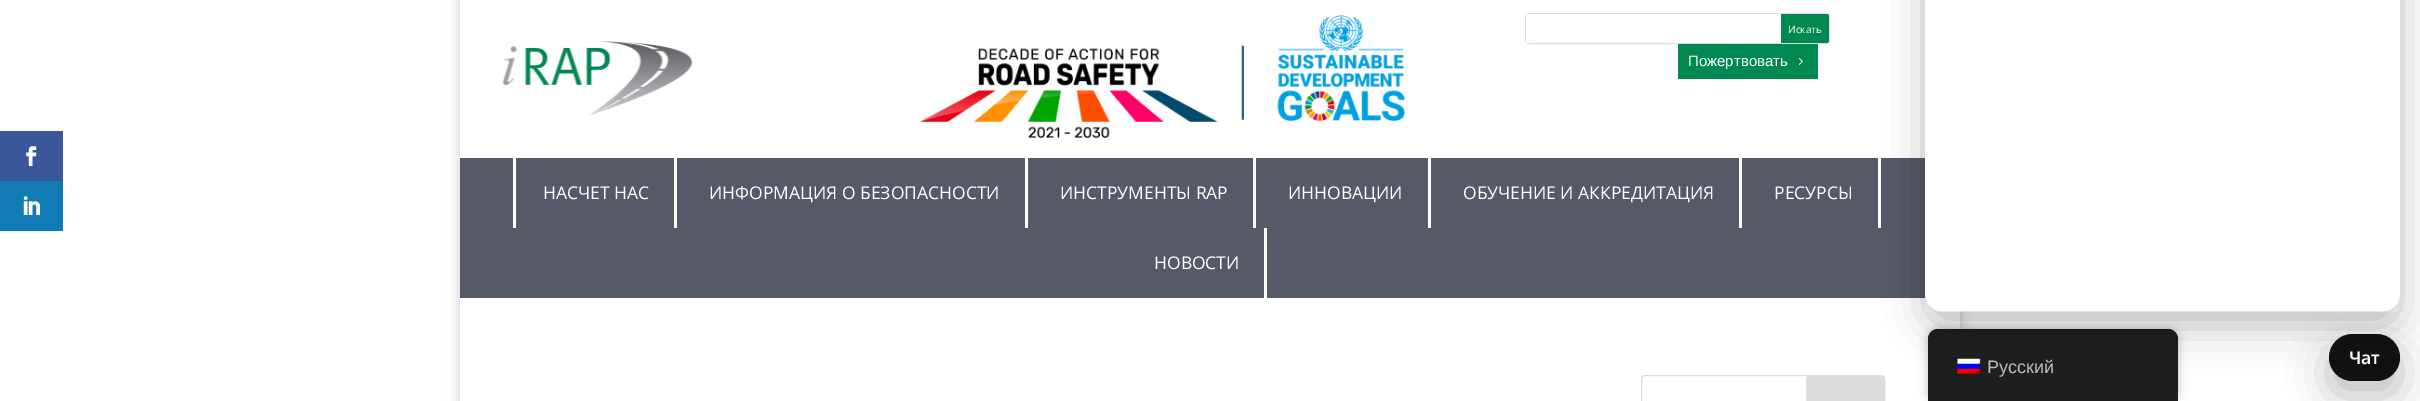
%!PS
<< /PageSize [2420 401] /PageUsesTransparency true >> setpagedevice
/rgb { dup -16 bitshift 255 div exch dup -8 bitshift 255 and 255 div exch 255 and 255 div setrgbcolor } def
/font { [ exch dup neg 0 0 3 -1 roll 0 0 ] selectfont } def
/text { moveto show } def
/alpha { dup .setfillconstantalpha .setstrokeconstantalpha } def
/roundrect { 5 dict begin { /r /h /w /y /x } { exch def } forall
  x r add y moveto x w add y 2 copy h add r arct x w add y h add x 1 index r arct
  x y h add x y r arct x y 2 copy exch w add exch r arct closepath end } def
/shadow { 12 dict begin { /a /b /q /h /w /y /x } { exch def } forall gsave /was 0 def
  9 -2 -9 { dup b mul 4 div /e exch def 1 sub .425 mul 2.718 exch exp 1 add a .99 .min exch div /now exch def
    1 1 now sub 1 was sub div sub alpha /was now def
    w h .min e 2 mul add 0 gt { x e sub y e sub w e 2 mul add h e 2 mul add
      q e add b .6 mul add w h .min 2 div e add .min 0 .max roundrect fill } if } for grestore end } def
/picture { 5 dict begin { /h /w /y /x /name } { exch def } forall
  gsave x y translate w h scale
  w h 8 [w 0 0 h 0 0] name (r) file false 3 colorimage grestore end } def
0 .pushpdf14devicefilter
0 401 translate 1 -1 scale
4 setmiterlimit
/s1 { /OpenSans-Regular 10 font 16#FFFFFF rgb } def
/s2 { /LiberationSans-Regular 15 font 16#FFFFFF rgb } def
/s3 { /OpenSans-Regular 17.5 font 16#FFFFFF rgb } def
/s4 { /LiberationSans-Regular 18 font 16#BDBDBD rgb } def
/s5 { /NotoSans-SemiBold 17.5 font 16#FFFFFF rgb } def
16#FFFFFF rgb
0 0 2420 401 rectfill
16#3A579A rgb
0 131 63 50 rectfill
(pic1.raw) 26 146 11 20 picture
16#127BB6 rgb
0 181 63 50 rectfill
(pic2.raw) 23 196 17 19 picture
gsave
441 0 moveto 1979 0 lineto 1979 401 lineto 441 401 lineto closepath 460 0 moveto 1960 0 lineto 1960 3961 lineto 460 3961 lineto closepath eoclip newpath
16#000000 rgb
460 0 1500 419 0 6 0.2 shadow
grestore
(pic3.raw) 502 41 191 75 picture
(pic4.raw) 920 15 485 124 picture
16#DDDDDD rgb
1525.5 13.5 304 30 3.5 roundrect stroke
16#FFFFFF rgb
1528.5 14 moveto 1781 14 lineto 1781 43 lineto 1528.5 43 lineto 1527 43 1526 42 1526 40.5 curveto 1526 16.5 lineto 1526 15 1527 14 1528.5 14 curveto closepath fill
16#008852 rgb
1781 14 moveto 1826.5 14 lineto 1828 14 1829 15 1829 16.5 curveto 1829 40.5 lineto 1829 42 1828 43 1826.5 43 curveto 1781 43 lineto closepath fill
s1
(Искать) 1788 33 text
16#008852 rgb
1678 44 140 35 rectfill
s2
(Пожертвовать) 1688 66 text
(pic5.raw) 1798 57 5 8 picture
16#565968 rgb
460 158 1466 140 rectfill
16#FFFFFF rgb
674 158 3 70 rectfill
513 158 3 70 rectfill
s3
(НАСЧЕТ НАС) 543 199 text
1025 158 3 70 rectfill
(ИНФОРМАЦИЯ О БЕЗОПАСНОСТИ) 709 199 text
1253 158 3 70 rectfill
(ИНСТРУМЕНТЫ RAP) 1060 199 text
1428 158 3 70 rectfill
(ИННОВАЦИИ) 1288 199 text
1739 158 3 70 rectfill
(ОБУЧЕНИЕ И АККРЕДИТАЦИЯ) 1463 199 text
1878 158 3 70 rectfill
(РЕСУРСЫ) 1774 199 text
1264 228 3 70 rectfill
(НОВОСТИ) 1154 269 text
16#DDDDDD rgb
1641.5 375.5 243 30 3.5 roundrect stroke
1806.5 375.5 78 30 3.5 roundrect gsave fill grestore
stroke
16#000000 rgb
1928 329 250 72 10 5 0.25 shadow
16#1E1E1E rgb
1938 329 moveto 2168 329 lineto 2173.5 329 2178 333.5 2178 339 curveto 2178 401 lineto 1928 401 lineto 1928 339 lineto 1928 333.5 1932.5 329 1938 329 curveto closepath fill
(pic7.raw) 1957 358 24 16 picture
16#000000 rgb
2329 349 71 47 23.5 20 0.25 shadow
16#111111 rgb
2329 334 71 47 23.5 roundrect fill
16#000000 rgb
1925 -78 475 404 18 20 0.25 shadow
16#FFFFFF rgb
1925 -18 475 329 18 roundrect fill
(pic6.raw) 1925 294 474 18 picture
s4
(Русский) 1987 373 text
s5
(Чат) 2349 364 text
.poppdf14devicefilter showpage
